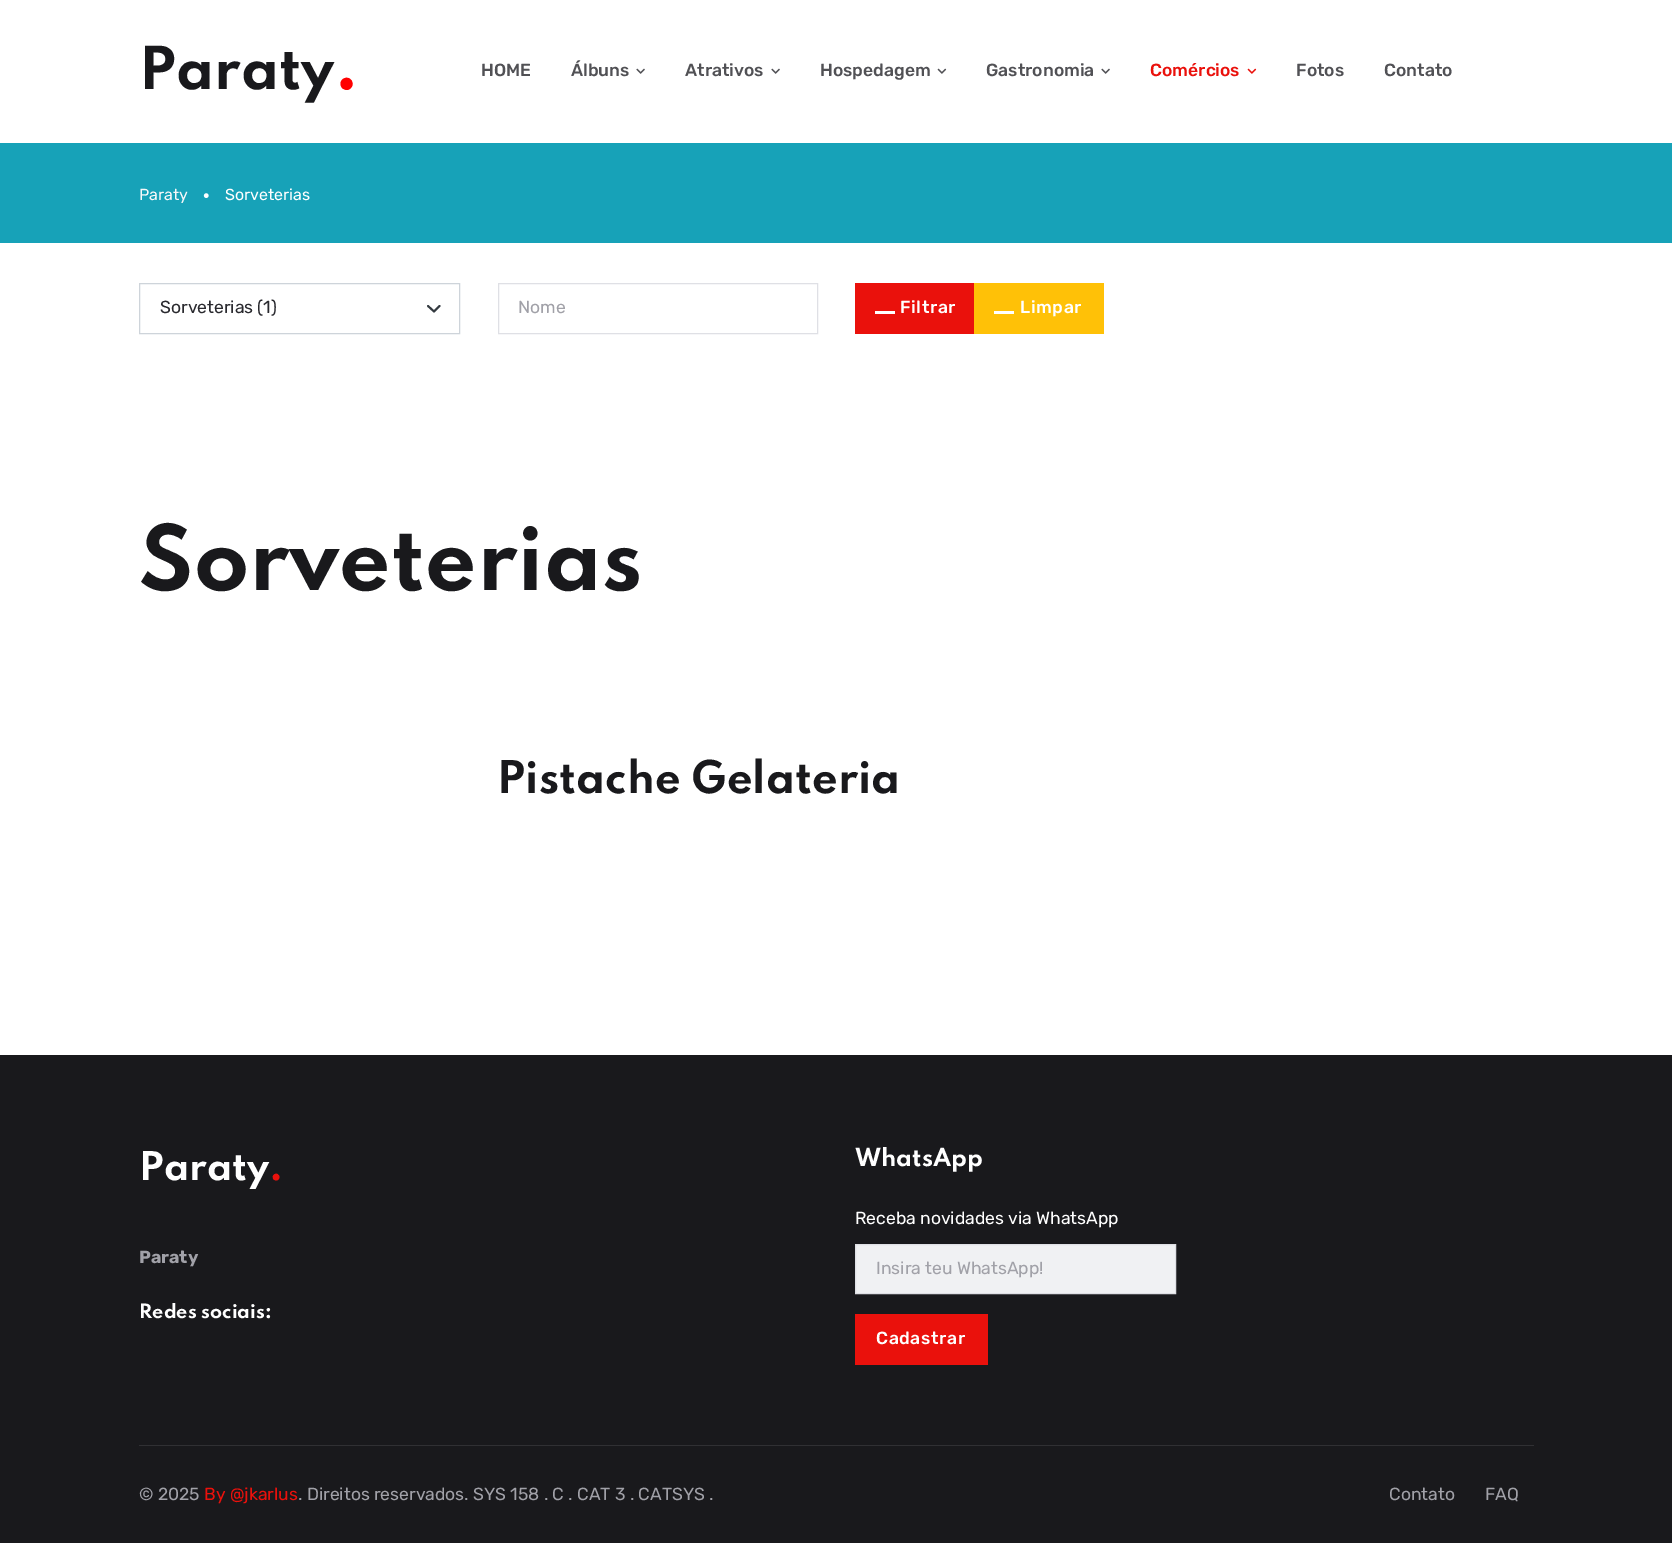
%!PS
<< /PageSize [1672 1543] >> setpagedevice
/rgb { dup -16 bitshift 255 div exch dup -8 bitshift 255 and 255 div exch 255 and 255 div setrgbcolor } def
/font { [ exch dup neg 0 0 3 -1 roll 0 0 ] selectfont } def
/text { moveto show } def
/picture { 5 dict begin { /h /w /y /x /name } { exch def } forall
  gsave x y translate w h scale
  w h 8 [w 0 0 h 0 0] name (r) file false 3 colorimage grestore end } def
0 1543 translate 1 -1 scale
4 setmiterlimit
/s1 { /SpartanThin-Bold 52.5 font 16#19191C rgb } def
/s2 { /SpartanThin-Bold 62 font 16#FF0000 rgb } def
/s3 { /Rubik-Medium 17.5 font 16#515155 rgb } def
/s4 { /Rubik-Medium 17.5 font 16#EA110C rgb } def
/s5 { /Rubik-Regular 16 font 16#F7F8F9 rgb } def
/s6 { /Rubik-Regular 16 font 16#FFFFFF rgb } def
/s7 { /Rubik-Regular 17.5 font 16#29292E rgb } def
/s8 { /Rubik-Regular 17.5 font 16#A1A1A8 rgb } def
/s9 { /SpartanThin-Bold 80 font 16#19191C rgb } def
/s10 { /SpartanThin-Bold 40 font 16#19191C rgb } def
/s11 { /SpartanThin-Bold 35 font 16#FFFFFF rgb } def
/s12 { /SpartanThin-Bold 35 font 16#EA110C rgb } def
/s13 { /Rubik-Bold 17.5 font 16#A1A1A8 rgb } def
/s14 { /SpartanThin-Bold 17.5 font 16#FFFFFF rgb } def
/s15 { /SpartanThin-Bold 22 font 16#FFFFFF rgb } def
/s16 { /Rubik-Regular 17.5 font 16#FFFFFF rgb } def
/s17 { /Rubik-Regular 17.5 font 16#EA110C rgb } def
16#FFFFFF rgb
0 0 1672 1543 rectfill
s1
(Paraty) 139 89 text
s2
(.) 334 89 text
s3
(HOME) 481 76 text
(Álbuns) 571 76 text
(pic1.raw) 636 68 9 6 picture
(Atrativos) 685 76 text
(pic1.raw) 771 68 9 6 picture
(Hospedagem) 820 76 text
(pic2.raw) 937 68 10 6 picture
(Gastronomia) 986 76 text
(pic1.raw) 1101 68 9 6 picture
s4
(Comércios) 1150 76 text
(pic3.raw) 1247 68 10 6 picture
s3
(Fotos) 1296 76 text
(Contato) 1384 76 text
16#17A2B8 rgb
0 143 1672 100 rectfill
s5
(Paraty) 139 200 text
(pic4.raw) 203 193 6 5 picture
s6
(Sorveterias) 225 200 text
16#343A40 rgb
1.9 setlinewidth
1 setlinecap
1 setlinejoin
428 306 moveto 434 311.5 lineto 439.5 306 lineto stroke
16#CED4DA rgb
1 setlinewidth
0 setlinecap
0 setlinejoin
139.5 283.5 320 50 rectstroke
s7
(Sorveterias \(1\)) 160 313 text
16#DFE0E5 rgb
498.5 283.5 319 50 rectstroke
s8
(Nome) 518 313 text
16#EA110C rgb
855 283 119 51 rectfill
16#FFFFFF rgb
875 311 20 3 rectfill
/Rubik-Medium 17.5 font
900 313 moveto 0.6 0 (Filtrar) ashow
16#FFC107 rgb
974 283 130 51 rectfill
16#FFFFFF rgb
994 311 20 3 rectfill
1020 313 moveto 0.6 0 (Limpar) ashow
s9
(Sorveterias) 139 590 text
s10
(Pistache Gelateria) 497 793 text
0 1055 1672 488 rectfill
s11
(Paraty) 139 1180 text
s12
(.) 269 1180 text
s13
(Paraty) 139 1263 text
s14
(Redes sociais:) 139 1318 text
s15
(WhatsApp) 855 1166 text
s16
(Receba novidades via WhatsApp) 855 1224 text
16#F0F1F3 rgb
855.5 1244.5 moveto 1175.5 1244.5 lineto 1175.5 1293.5 lineto 855.5 1293.5 lineto closepath gsave fill grestore
16#DFE0E5 rgb
stroke
s8
(Insira teu WhatsApp!) 876 1274 text
16#EA110C rgb
855 1314 133 51 rectfill
/Rubik-Medium 17.5 font
16#FFFFFF rgb
876 1344 moveto 0.6 0 (Cadastrar) ashow
16#303033 rgb
139 1445 1395 1 rectfill
s8
(© 2025) 139 1500 text
s17
(By @jkarlus) 204 1500 text
s8
(. Direitos reservados. SYS 158 . C . CAT 3 . CATSYS .) 298 1500 text
(Contato) 1389 1500 text
(FAQ) 1485 1500 text
showpage
